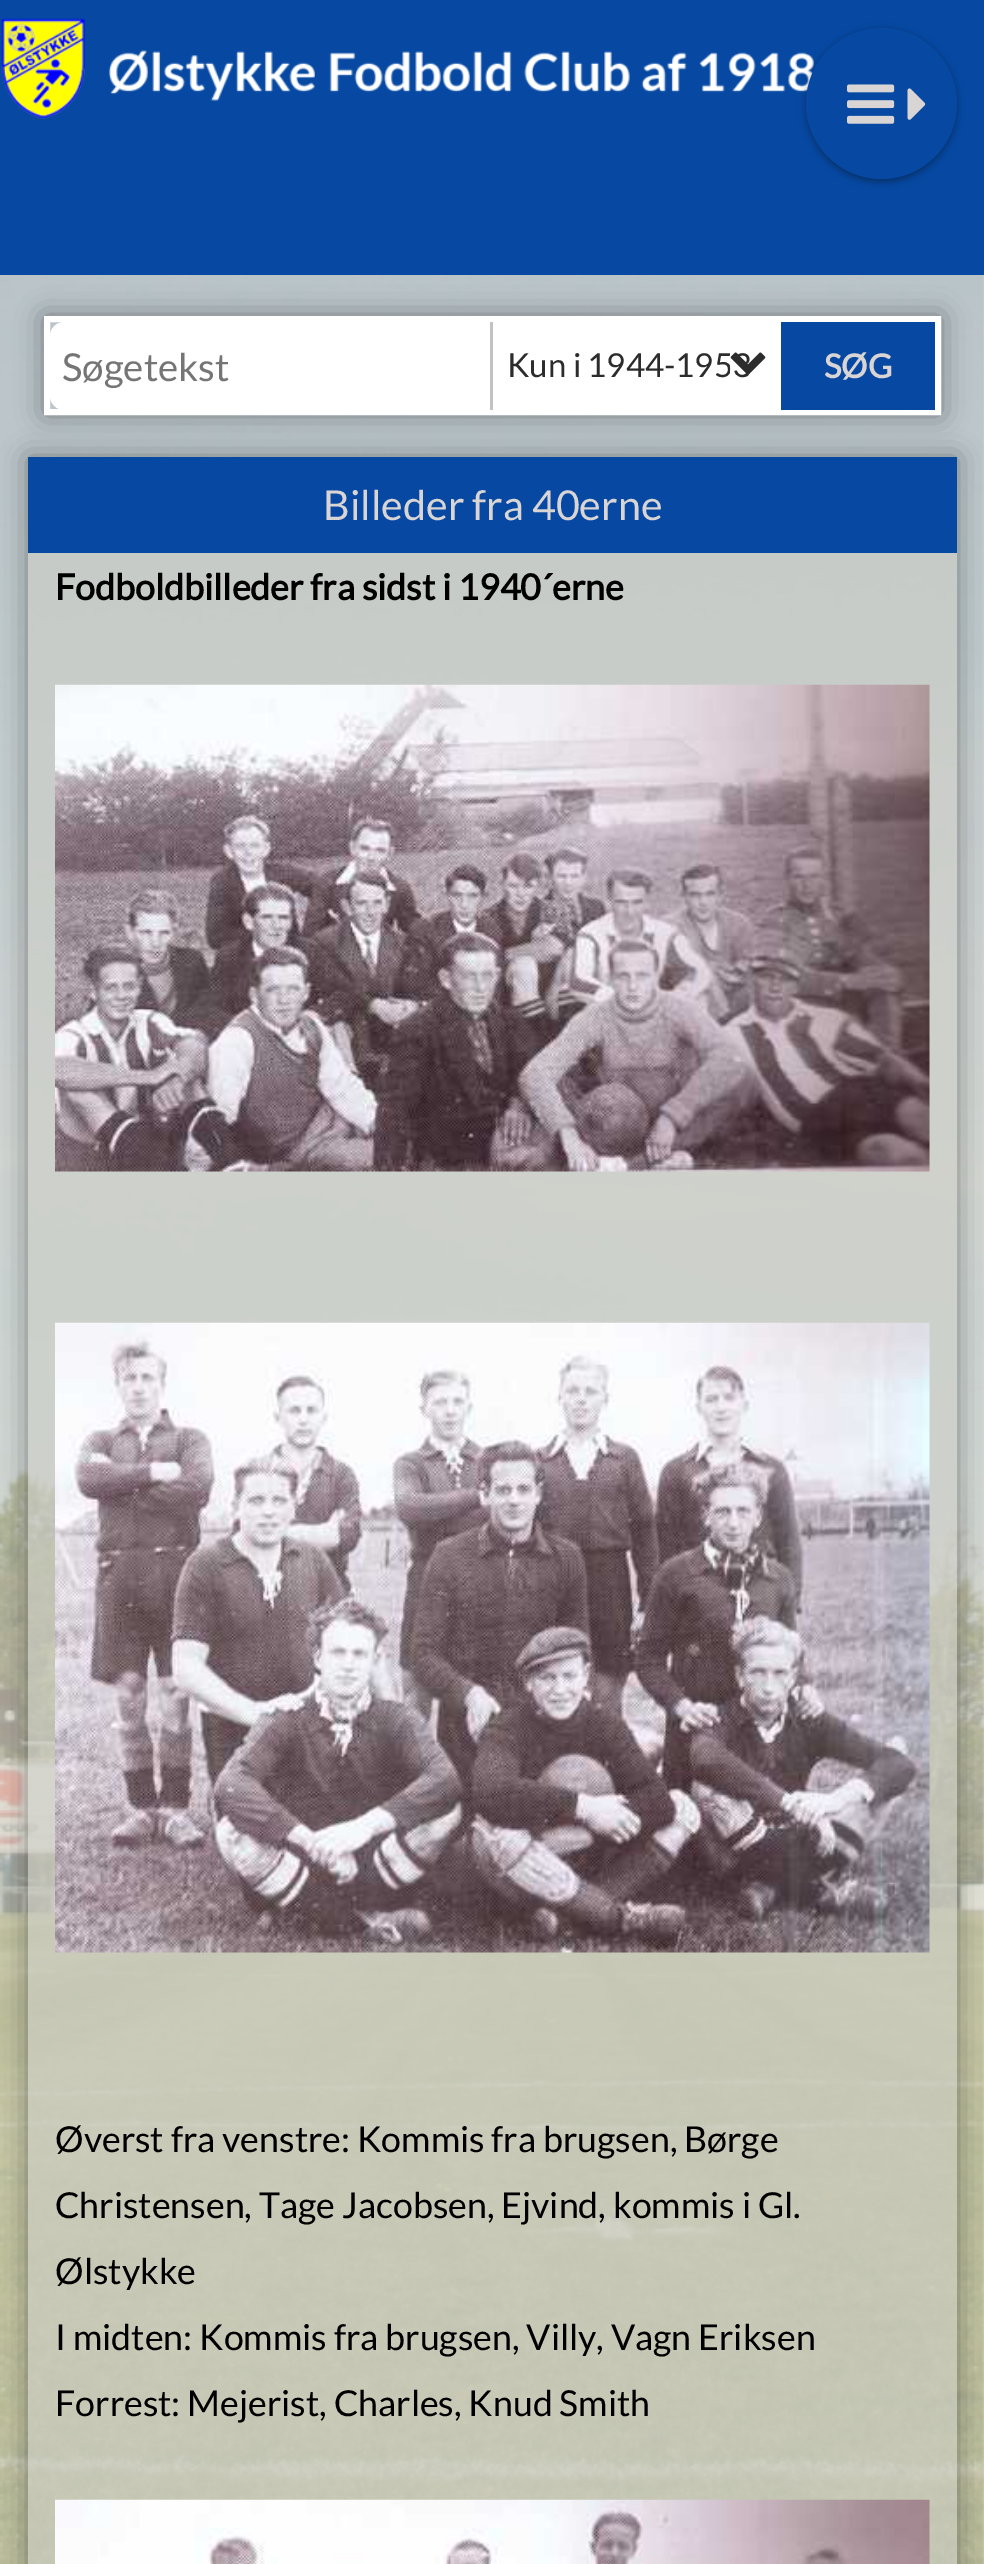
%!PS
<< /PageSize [984 2564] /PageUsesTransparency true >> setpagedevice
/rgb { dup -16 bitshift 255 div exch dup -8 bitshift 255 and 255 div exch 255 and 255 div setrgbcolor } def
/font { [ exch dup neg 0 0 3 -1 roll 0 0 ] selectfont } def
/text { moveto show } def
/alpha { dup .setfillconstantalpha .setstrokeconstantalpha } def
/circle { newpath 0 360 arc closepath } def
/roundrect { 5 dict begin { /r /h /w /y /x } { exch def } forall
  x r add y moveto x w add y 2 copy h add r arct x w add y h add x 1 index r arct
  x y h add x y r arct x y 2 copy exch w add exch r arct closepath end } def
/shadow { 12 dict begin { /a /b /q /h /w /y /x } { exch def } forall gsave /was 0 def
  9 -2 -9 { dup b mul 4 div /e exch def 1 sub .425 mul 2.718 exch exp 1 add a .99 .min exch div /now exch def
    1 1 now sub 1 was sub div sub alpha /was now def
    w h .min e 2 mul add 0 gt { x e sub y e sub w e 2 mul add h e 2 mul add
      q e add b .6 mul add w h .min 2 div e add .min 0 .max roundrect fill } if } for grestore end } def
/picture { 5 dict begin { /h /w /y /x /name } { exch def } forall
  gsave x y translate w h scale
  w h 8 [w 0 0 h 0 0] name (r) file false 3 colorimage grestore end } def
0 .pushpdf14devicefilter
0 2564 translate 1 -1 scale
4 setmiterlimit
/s1 { /Lato-Regular 38.5 font 16#757575 rgb } def
/s2 { /Lato-Regular 33 font 16#2C2C2C rgb } def
/s3 { /Lato-Bold 33 font 16#D9D5D5 rgb } def
/s4 { /Lato-Regular 41.25 font 16#D9D5D5 rgb } def
/s5 { /Lato-Bold 35.75 font 16#000000 rgb } def
/s6 { /Lato-Regular 35.75 font 16#000000 rgb } def
16#FFFFFF rgb
0 0 984 2564 rectfill
(pic1.raw) 0 275 984 2289 picture
0.7 alpha
16#D9D9C9 rgb
0 275 984 2289 rectfill
gsave
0 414 moveto 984 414 lineto 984 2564 lineto 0 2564 lineto closepath 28 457 moveto 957 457 lineto 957 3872 lineto 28 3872 lineto closepath eoclip newpath
1 alpha
16#303030 rgb
28 457 929 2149 0 14 0.5 shadow
grestore
1 alpha
16#0648A2 rgb
28 457 929 96 rectfill
gsave
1 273 moveto 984 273 lineto 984 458 lineto 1 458 lineto closepath 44 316 moveto 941 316 lineto 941 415 lineto 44 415 lineto closepath eoclip newpath
16#303030 rgb
44 316 897 99 0 14 0.5 shadow
grestore
0 0 984 275 rectfill
(pic2.raw) 1 18 813 101 picture
16#000000 rgb
806 30 151 152 75.5 3 0.24 shadow
806 30 151 152 75.5 4 0.12 shadow
16#0648A2 rgb
881.5 103.5 75.5 circle fill
(pic3.raw) 847 84 48 40 picture
(pic4.raw) 907 88 19 32 picture
16#FFFFFF rgb
6 setlinewidth
47 319 891 93 rectstroke
64 322 moveto 501 322 lineto 501 410 lineto 64 410 lineto 56.5 410 50 403.5 50 396 curveto 50 336 lineto 50 328.5 56.5 322 64 322 curveto closepath fill
s1
(Søgetekst) 62 381 text
16#FFFFFF rgb
501 322 280 87 rectfill
16#C2C2C2 rgb
490 322 3 88 rectfill
s2
(Kun i 1944-1953) 507 377 text
(pic5.raw) 730 352 36 23 picture
16#0648A2 rgb
781 322 154 88 rectfill
s3
(SØG) 824 378 text
0.6 alpha
16#CCCDC5 rgb
28 553 929 2011 rectfill
1 alpha
s4
(Billeder fra 40erne) 323 520 text
s5
(Fodboldbilleder fra sidst i 1940´erne) 55 600 text
(pic6.raw) 55 684 875 488 picture
(pic7.raw) 55 1322 875 631 picture
s6
(Øverst fra venstre: Kommis fra brugsen, Børge) 55 2152 text
(Christensen, Tage Jacobsen, Ejvind, kommis i Gl.) 55 2218 text
(Ølstykke) 55 2284 text
(I midten: Kommis fra brugsen, Villy, Vagn Eriksen) 55 2350 text
(Forrest: Mejerist, Charles, Knud Smith) 55 2416 text
(pic8.raw) 55 2499 875 65 picture
.poppdf14devicefilter showpage
